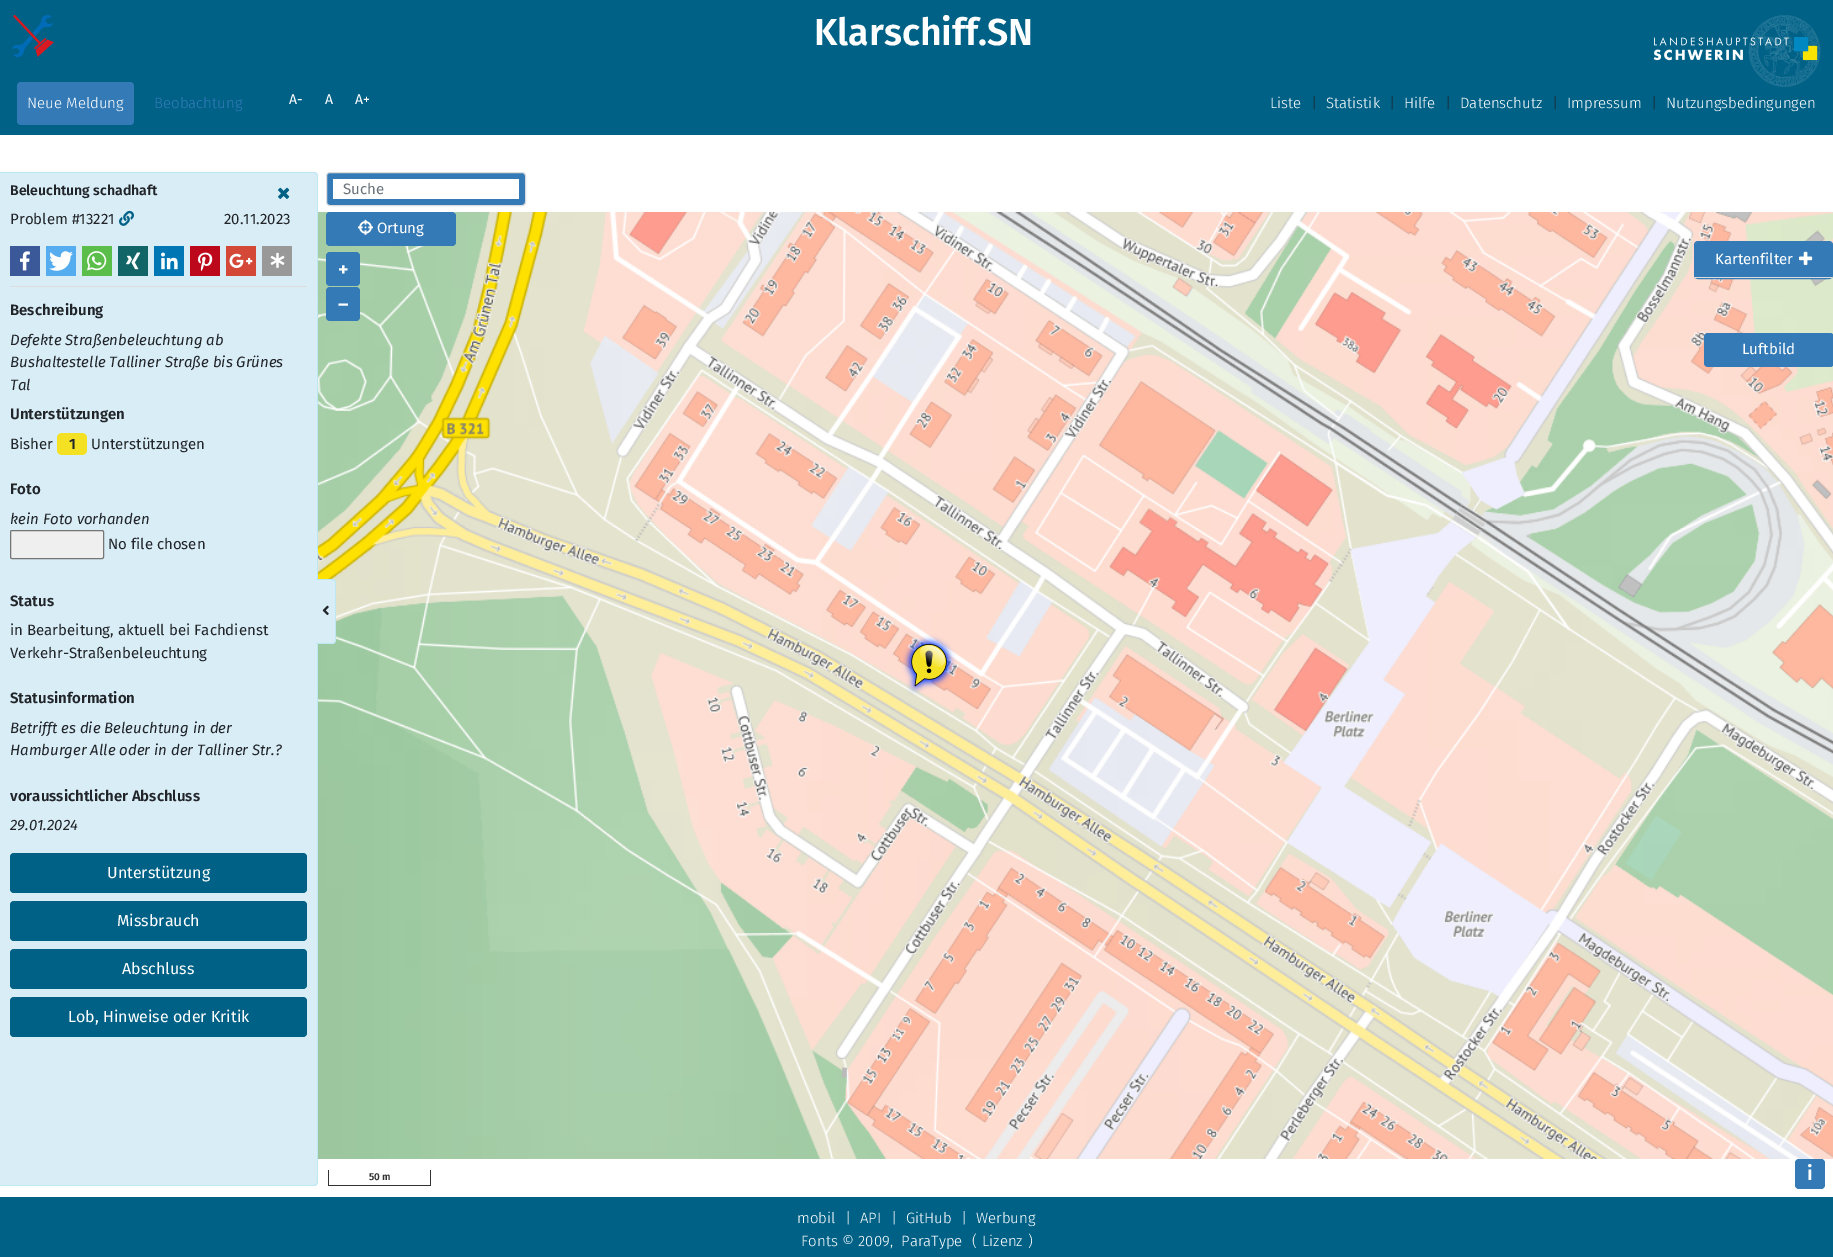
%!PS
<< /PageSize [1833 1257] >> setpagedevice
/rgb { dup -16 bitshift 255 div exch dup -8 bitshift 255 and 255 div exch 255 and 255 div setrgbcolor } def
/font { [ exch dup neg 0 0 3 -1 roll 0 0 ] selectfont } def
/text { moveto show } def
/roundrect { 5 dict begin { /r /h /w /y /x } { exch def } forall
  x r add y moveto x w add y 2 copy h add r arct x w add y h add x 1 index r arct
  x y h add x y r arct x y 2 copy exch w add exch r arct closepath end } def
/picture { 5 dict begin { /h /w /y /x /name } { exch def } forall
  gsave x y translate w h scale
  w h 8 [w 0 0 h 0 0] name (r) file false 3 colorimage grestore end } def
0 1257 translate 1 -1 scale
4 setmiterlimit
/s1 { /FiraSans-SemiBold 37.5 font 16#FFFFFF rgb } def
/s2 { /FiraSans-Light 15 font 16#FFFFFF rgb } def
/s3 { /FiraSans-Light 15 font 16#337AB7 rgb } def
/s4 { /FiraSans-Regular 14 font 16#FFFFFF rgb } def
/s5 { /FiraSans-Light 15 font 16#212529 rgb } def
/s6 { /FiraSans-SemiBold 14 font 16#212529 rgb } def
/s7 { /FiraSans-Regular 15 font 16#212529 rgb } def
/s8 { /FiraSans-SemiBold 15 font 16#212529 rgb } def
/s9 { /FiraSans-Italic 15 font 16#212529 rgb } def
/s10 { /FiraSans-Regular 16 font 16#FFFFFF rgb } def
/s11 { /FiraSans-Regular 15 font 16#6C757D rgb } def
/s12 { /FiraSans-Regular 15 font 16#FFFFFF rgb } def
/s13 { /FiraSans-SemiBold 20 font 16#FFFFFF rgb } def
/s14 { /FiraSans-SemiBold 10 font 16#333333 rgb } def
16#FFFFFF rgb
0 0 1833 1257 rectfill
16#006187 rgb
0 0 1833 135 rectfill
(pic1.raw) 12 15 42 42 picture
s1
(Klarschiff.SN) 814 45 text
(pic2.raw) 1653 15 168 72 picture
16#337AB7 rgb
17 82 117 43 4 roundrect fill
s2
(Neue Meldung) 27 108 text
s3
(Beobachtung) 154 108 text
s4
(A-) 289 104 text
(A) 325 104 text
(A+) 355 104 text
s2
(Liste) 1270 108 text
s5
(|) 1311 108 text
s2
(Statistik) 1326 108 text
s5
(|) 1389 108 text
s2
(Hilfe) 1404 108 text
s5
(|) 1445 108 text
s2
(Datenschutz) 1460 108 text
s5
(|) 1552 108 text
s2
(Impressum) 1567 108 text
s5
(|) 1651 108 text
s2
(Nutzungsbedingungen) 1666 108 text
16#D9EDF7 rgb
0 172 moveto 314 172 lineto 316 172 318 174 318 176 curveto 318 1182 lineto 318 1184 316 1186 314 1186 curveto 0 1186 lineto closepath fill
16#BCE8F1 rgb
0 172 moveto 314 172 lineto 316 172 318 174 318 176 curveto 318 1182 lineto 318 1184 316 1186 314 1186 curveto 0 1186 lineto closepath 0 173 moveto 314 173 lineto 316 173 317 174 317 176 curveto 317 1182 lineto 317 1184 316 1185 314 1185 curveto 0 1185 lineto closepath eofill
16#DDDDDD rgb
10 286 297 1 rectfill
s6
(Beleuchtung schadhaft) 10 195 text
(pic3.raw) 278 187 12 12 picture
s7
(Problem #13221) 10 224 text
(pic4.raw) 119 210 15 16 picture
(20.11.2023) 224 224 text
16#3B5998 rgb
10 246 30 30 rectfill
(pic5.raw) 20 251 10 20 picture
16#55ACEE rgb
46 246 30 30 rectfill
(pic6.raw) 49 251 24 20 picture
16#5CBE4A rgb
82 246 30 30 rectfill
(pic7.raw) 87 251 20 20 picture
16#126567 rgb
118 246 30 30 rectfill
(pic8.raw) 126 252 15 18 picture
16#0077B5 rgb
154 246 30 30 rectfill
(pic9.raw) 161 252 17 18 picture
16#BD081C rgb
190 246 30 30 rectfill
(pic10.raw) 198 252 15 20 picture
16#D34836 rgb
226 246 30 30 rectfill
(pic11.raw) 229 253 24 15 picture
16#999999 rgb
262 246 30 30 rectfill
(pic12.raw) 270 252 15 16 picture
s8
(Beschreibung) 10 315 text
s9
(Defekte Straßenbeleuchtung ab) 10 345 text
(Bushaltestelle Talliner Straße bis Grünes) 10 367 text
(Tal) 10 390 text
s8
(Unterstützungen) 10 419 text
s7
(Bisher) 10 449 text
16#F5E123 rgb
57 433 30 22 5 roundrect fill
s8
(1) 69 449 text
s7
(Unterstützungen) 91 449 text
s8
(Foto) 10 494 text
s9
(kein Foto vorhanden) 10 524 text
16#EFEFEF rgb
10.5 530.5 93 28 1.5 roundrect gsave fill grestore
16#767676 rgb
stroke
s7
(No file chosen) 108 549 text
s8
(Status) 10 606 text
s7
(in Bearbeitung, aktuell bei Fachdienst) 10 635 text
(Verkehr-Straßenbeleuchtung) 10 658 text
s8
(Statusinformation) 10 703 text
s9
(Betrifft es die Beleuchtung in der) 10 733 text
(Hamburger Alle oder in der Talliner Str.?) 10 755 text
s8
(voraussichtlicher Abschluss) 10 801 text
s9
(29.01.2024) 10 830 text
16#006187 rgb
10 853 297 40 4 roundrect fill
s10
(Unterstützung) 107 878 text
16#006187 rgb
10 901 297 40 4 roundrect fill
s10
(Missbrauch) 117 926 text
16#006187 rgb
10 949 297 40 4 roundrect fill
s10
(Abschluss) 122 974 text
16#006187 rgb
10 997 297 40 4 roundrect fill
s10
(Lob, Hinweise oder Kritik) 68 1022 text
16#337AB7 rgb
326.5 172.5 199 33 3.5 roundrect gsave fill grestore
16#DDDDDD rgb
stroke
16#FFFFFF rgb
333 179 186 20 rectfill
s11
(Suche) 343 194 text
(pic13.raw) 318 212 1515 947 picture
16#337AB7 rgb
326 212 130 34 4 roundrect fill
(pic14.raw) 358 219 15 16 picture
s12
(Ortung) 377 233 text
16#337AB7 rgb
326 252 34 34 4 roundrect fill
s13
(+) 338 276 text
16#337AB7 rgb
326 287 34 34 4 roundrect fill
s13
(–) 338 311 text
16#337AB7 rgb
1704 333 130 34 4 roundrect fill
s12
(Luftbild) 1742 354 text
16#333333 rgb
430 1170 1 16 rectfill
328 1185 103 1 rectfill
328 1170 1 16 rectfill
s14
(50 m) 369 1180 text
16#337AB7 rgb
1795 1159 30 30 4 roundrect fill
s13
(i) 1807 1180 text
16#337AB7 rgb
1694.5 241.5 138 37 3.5 roundrect stroke
1698 242 moveto 1829 242 lineto 1830.5 242 1832 243.5 1832 245 curveto 1832 278 lineto 1695 278 lineto 1695 245 lineto 1695 243.5 1696.5 242 1698 242 curveto closepath fill
16#DDDDDD rgb
1695 277 137 1 rectfill
s12
(Kartenfilter) 1715 264 text
(pic15.raw) 1799 251 14 14 picture
16#D9EDF7 rgb
316 579 moveto 332 579 lineto 334 579 336 581 336 583 curveto 336 640 lineto 336 642 334 644 332 644 curveto 316 644 lineto closepath fill
16#BCE8F1 rgb
316 579 moveto 332 579 lineto 334 579 336 581 336 583 curveto 336 640 lineto 336 642 334 644 332 644 curveto 316 644 lineto closepath 316 580 moveto 332 580 lineto 334 580 335 581 335 583 curveto 335 640 lineto 335 642 334 643 332 643 curveto 316 643 lineto closepath eofill
(pic16.raw) 322 605 7 10 picture
16#006187 rgb
0 1197 1833 60 rectfill
s2
(mobil) 797 1223 text
(|) 845 1223 text
(API) 860 1223 text
(|) 891 1223 text
(GitHub) 906 1223 text
(|) 961 1223 text
(Werbung) 976 1223 text
(Fonts © 2009,) 801 1246 text
(ParaType) 901 1246 text
(\() 972 1246 text
(Lizenz) 982 1246 text
(\)) 1028 1246 text
showpage
